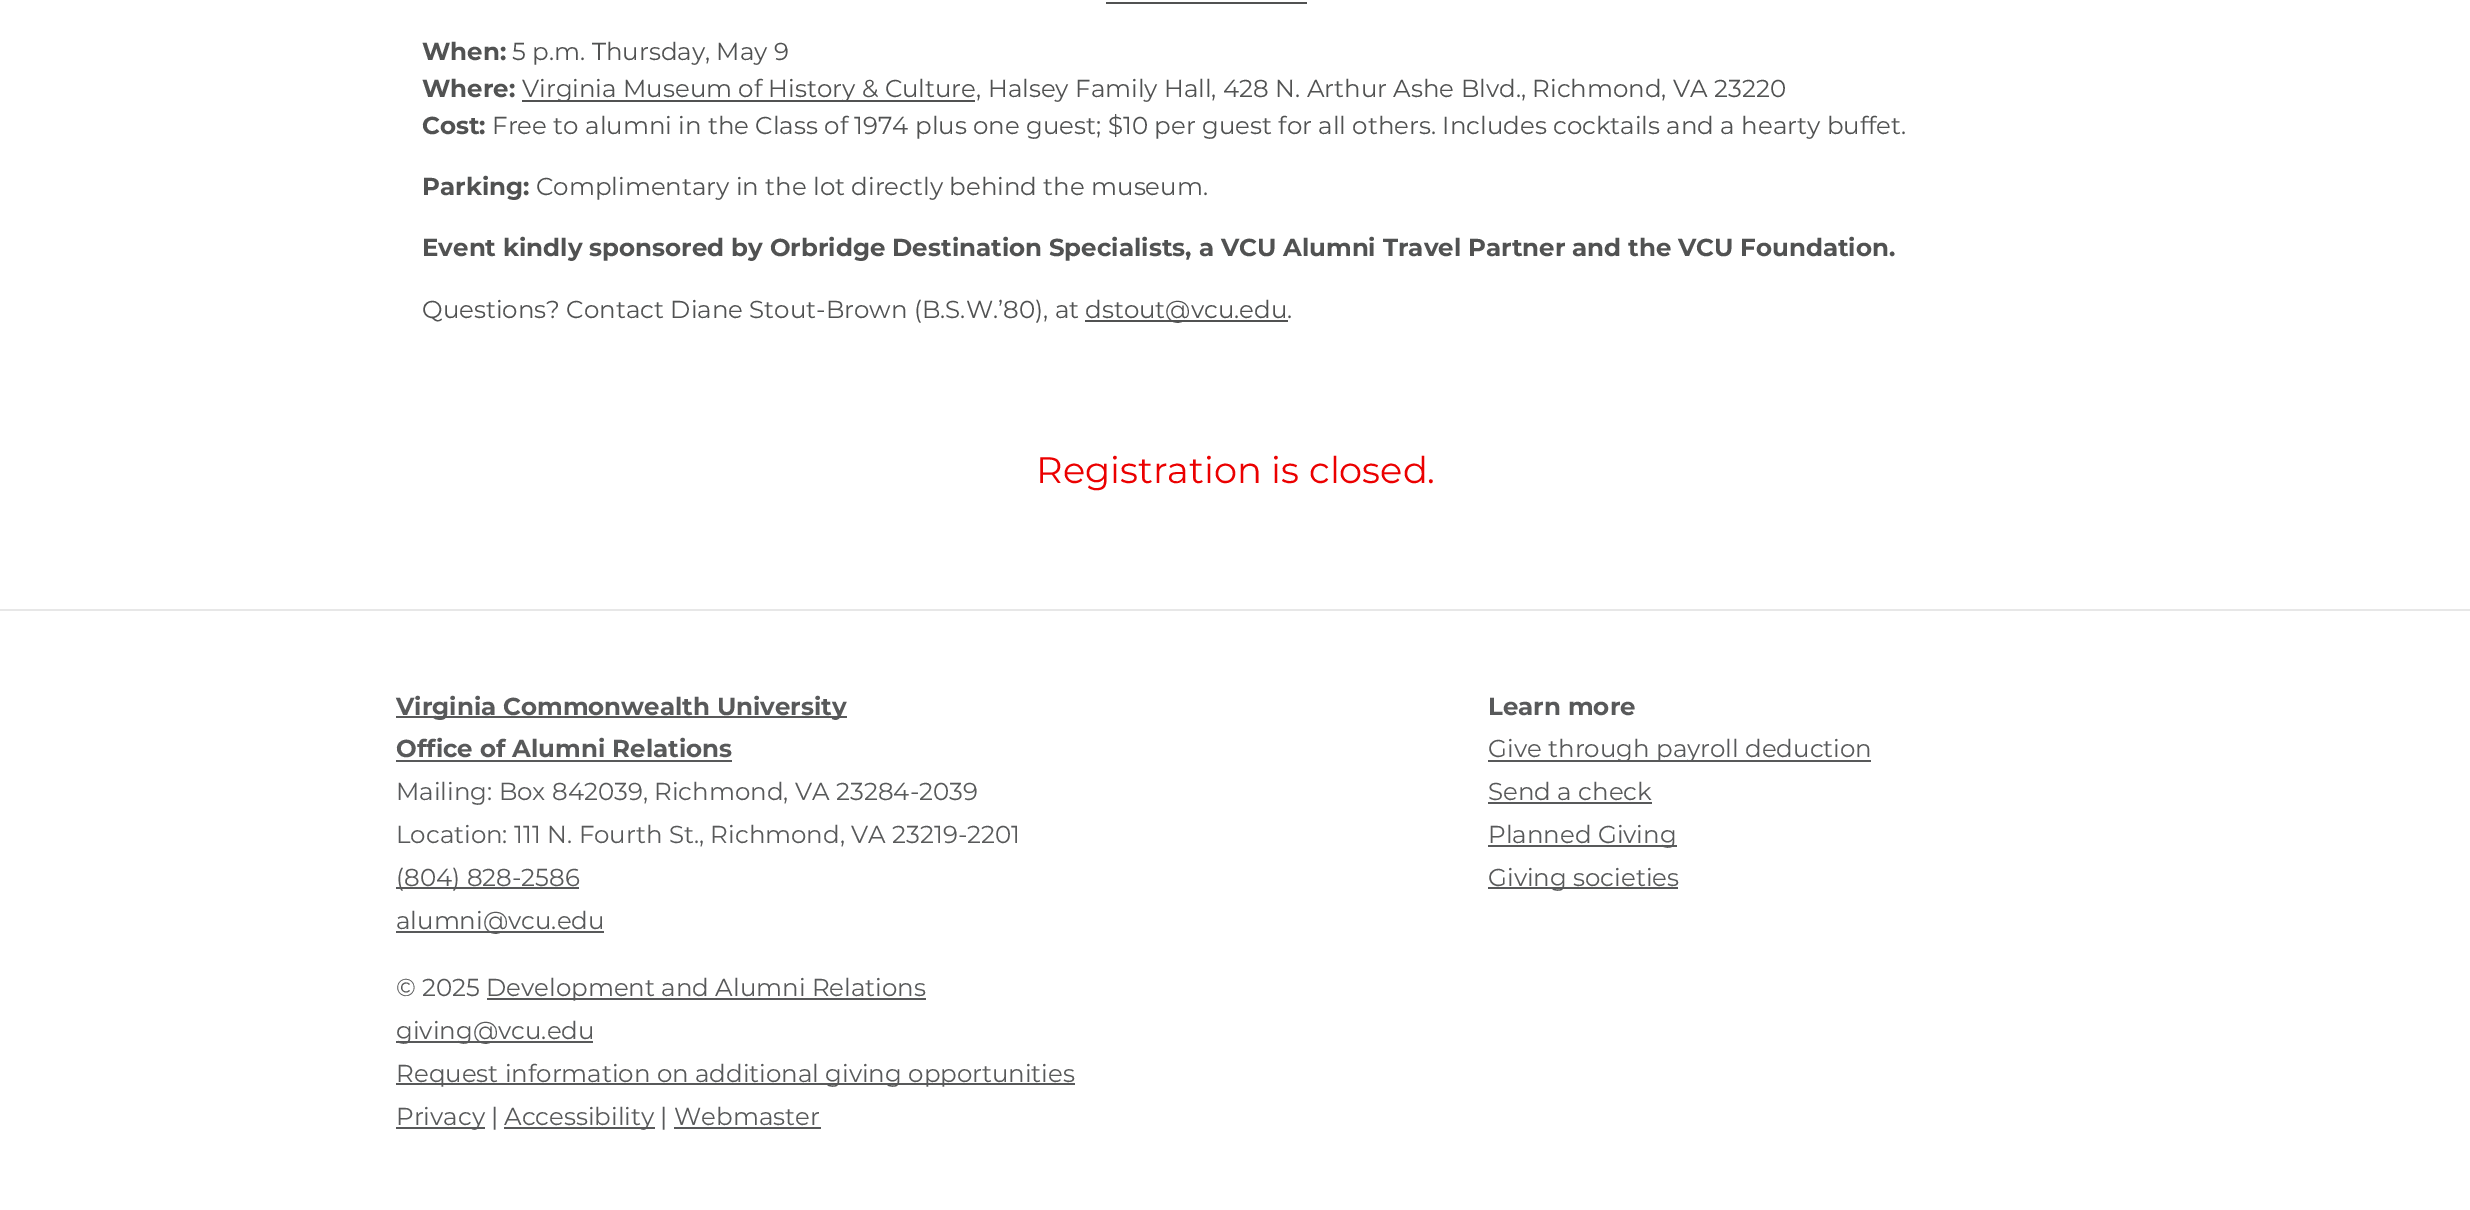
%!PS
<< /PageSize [2470 1210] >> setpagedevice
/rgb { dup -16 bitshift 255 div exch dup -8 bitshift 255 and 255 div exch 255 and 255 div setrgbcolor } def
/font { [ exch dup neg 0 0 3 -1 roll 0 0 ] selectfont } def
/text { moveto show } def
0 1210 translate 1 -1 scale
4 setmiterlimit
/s1 { /Montserrat-Bold 24.5 font 16#515252 rgb } def
/s2 { /Montserrat-Regular 24.5 font 16#515252 rgb } def
/s3 { /Montserrat-Regular 36.75 font 16#EB0000 rgb } def
/s4 { /Montserrat-Bold 24.5 font 16#58595A rgb } def
/s5 { /Montserrat-Regular 24.5 font 16#58595A rgb } def
16#FFFFFF rgb
0 0 2470 1210 rectfill
16#515252 rgb
1106 2 201 2 rectfill
s1
(When:) 422 60 text
s2
(5 p.m. Thursday, May 9) 512 60 text
s1
(Where:) 422 97 text
522 100 453 2 rectfill
s2
(Virginia Museum of History & Culture, Halsey Family Hall, 428 N. Arthur Ashe Blvd., Richmond, VA 23220) 522 97 text
s1
(Cost:) 422 134 text
s2
(Free to alumni in the Class of 1974 plus one guest; $10 per guest for all others. Includes cocktails and a hearty buffet.) 492 134 text
s1
(Parking:) 422 195 text
s2
(Complimentary in the lot directly behind the museum.) 536 195 text
s1
(Event kindly sponsored by Orbridge Destination Specialists, a VCU Alumni Travel Partner and the VCU Foundation.) 422 256 text
s2
(Questions? Contact Diane Stout-Brown \(B.S.W.’80\), at) 422 318 text
1085 320 203 2 rectfill
(dstout@vcu.edu.) 1085 318 text
s3
(Registration is closed.) 1036 483 text
16#E7E7E7 rgb
0 609 2470 2 rectfill
16#58595A rgb
396 716 451 2 rectfill
s4
(Virginia Commonwealth University) 396 715 text
(Office of Alumni Relations) 396 757 text
396 760 336 2 rectfill
s5
(Mailing: Box 842039, Richmond, VA 23284-2039) 396 800 text
(Location: 111 N. Fourth St., Richmond, VA 23219-2201) 396 843 text
396 887 183 2 rectfill
(\(804\) 828-2586) 396 886 text
396 931 208 2 rectfill
(alumni@vcu.edu) 396 929 text
(© 2025) 396 996 text
487 998 439 2 rectfill
(Development and Alumni Relations) 486 996 text
396 1041 197 2 rectfill
(giving@vcu.edu) 396 1039 text
396 1083 679 2 rectfill
(Request information on additional giving opportunities) 396 1082 text
396 1127 89 2 rectfill
(Privacy |) 396 1125 text
504 1127 151 2 rectfill
(Accessibility | Webmaster) 504 1125 text
674 1127 147 2 rectfill
s4
(Learn more) 1488 715 text
1488 760 383 2 rectfill
s5
(Give through payroll deduction) 1488 757 text
(Send a check) 1488 800 text
1488 802 164 2 rectfill
1488 845 189 2 rectfill
(Planned Giving) 1488 843 text
1488 887 190 2 rectfill
(Giving societies) 1488 886 text
showpage
